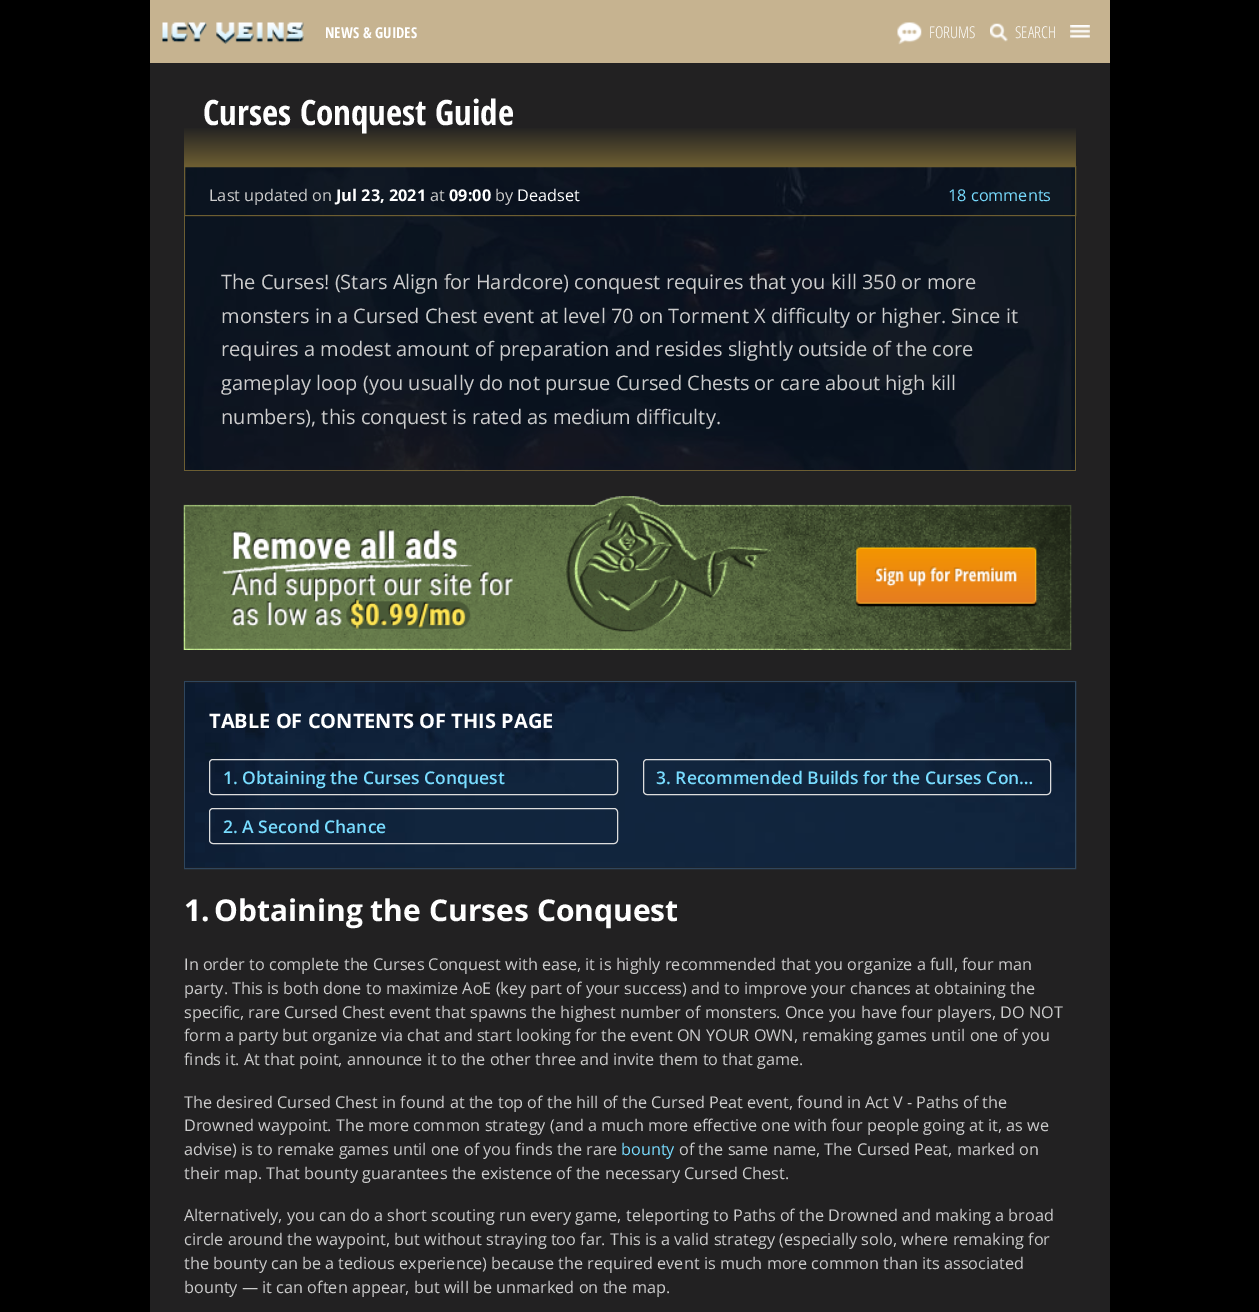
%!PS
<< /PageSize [1259 1312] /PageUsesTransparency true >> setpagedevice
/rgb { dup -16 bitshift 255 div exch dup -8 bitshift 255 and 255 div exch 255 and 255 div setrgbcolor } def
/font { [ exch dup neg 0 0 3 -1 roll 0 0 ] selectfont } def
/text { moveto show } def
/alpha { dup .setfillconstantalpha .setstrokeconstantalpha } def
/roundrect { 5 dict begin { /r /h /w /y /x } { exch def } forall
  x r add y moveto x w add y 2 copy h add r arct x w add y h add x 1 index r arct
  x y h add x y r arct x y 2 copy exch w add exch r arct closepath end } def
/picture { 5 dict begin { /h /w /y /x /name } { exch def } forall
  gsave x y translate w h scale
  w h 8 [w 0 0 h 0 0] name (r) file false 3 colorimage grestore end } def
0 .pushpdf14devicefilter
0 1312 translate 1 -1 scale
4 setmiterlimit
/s1 { /OpenSansCondensed-Bold 15 font 16#FFFFFF rgb } def
/s2 { /OpenSansCondensed-Light 16.25 font 16#FFFFFF rgb } def
/s3 { /OpenSansCondensed-Bold 35 font 16#FFFFFF rgb } def
/s4 { /OpenSans-Regular 16.25 font 16#CCCCCC rgb } def
/s5 { /OpenSans-Bold 16.25 font 16#FFFFFF rgb } def
/s6 { /OpenSans-Regular 16.25 font 16#FFFFFF rgb } def
/s7 { /OpenSans-Regular 16.25 font 16#78DCFF rgb } def
/s8 { /OpenSans-Regular 20 font 16#CCCCCC rgb } def
/s9 { /OpenSans-Bold 20 font 16#FFFFFF rgb } def
/s10 { /OpenSans-SemiBold 17.5 font 16#78DCFF rgb } def
/s11 { /OpenSans-Bold 30 font 16#FFFFFF rgb } def
16#000000 rgb
0 0 1259 1312 rectfill
16#C6B390 rgb
150 0 960 63 rectfill
(pic1.raw) 162 22 142 22 picture
s1
(NEWS & GUIDES) 325 38 text
(pic2.raw) 897 22 25 23 picture
s2
(FORUMS) 929 38 text
(pic3.raw) 990 23 18 19 picture
(SEARCH) 1015 38 text
(pic4.raw) 1070 25 20 13 picture
16#222122 rgb
150 63 960 1249 rectfill
gsave 184 128 moveto 1076 128 lineto 1076 166 lineto 184 166 lineto closepath clip newpath
<< /ShadingType 2 /ColorSpace /DeviceRGB /Coords [630 166 630 88] /Extend [true true] /Function << /FunctionType 3 /Domain [0 1] /Functions [<< /FunctionType 2 /Domain [0 1] /C0 [0.427 0.369 0.196] /C1 [0.133 0.129 0.133] /N 1 >> << /FunctionType 2 /Domain [0 1] /C0 [0.133 0.129 0.133] /C1 [0.133 0.129 0.133] /N 1 >>] /Bounds [0.51] /Encode [0 1 0 1] >> >> shfill grestore
s3
(Curses Conquest Guide) 203 125 text
(pic5.raw) 183 166 894 306 picture
0.3 alpha
16#000000 rgb
184.5 166.5 moveto 1075.5 166.5 lineto 1075.5 215.5 lineto 184.5 215.5 lineto closepath fill
1 alpha
16#6D5E32 rgb
184.5 166.5 moveto 1075.5 166.5 lineto 1075.5 215.5 lineto 184.5 215.5 lineto closepath stroke
s4
(Last updated on) 209 201 text
s5
(Jul 23, 2021) 336 201 text
s4
(at) 430 201 text
s5
(09:00) 449 201 text
s4
(by) 495 201 text
s6
(Deadset) 517 201 text
s7
(18 comments) 948 201 text
0.3 alpha
16#000000 rgb
185 216 890 254 rectfill
1 alpha
16#6D5E32 rgb
1075 216 1 255 rectfill
184 470 892 1 rectfill
184 216 1 255 rectfill
s8
(The Curses! \(Stars Align for Hardcore\) conquest requires that you kill 350 or more) 221 289 text
(monsters in a Cursed Chest event at level 70 on Torment X difficulty or higher. Since it) 221 323 text
(requires a modest amount of preparation and resides slightly outside of the core) 221 356 text
(gameplay loop \(you usually do not pursue Cursed Chests or care about high kill) 221 390 text
(numbers\), this conquest is rated as medium difficulty.) 221 424 text
(pic6.raw) 183 496 889 154 picture
16#2F465D rgb
184.5 681.5 891 187 rectstroke
(pic7.raw) 185 682 890 186 picture
s9
(TABLE OF CONTENTS OF THIS PAGE) 209 728 text
16#DDDDDD rgb
209.5 759.5 408 35 3.5 roundrect stroke
s10
(1. Obtaining the Curses Conquest) 223 784 text
16#DDDDDD rgb
209.5 808.5 408 35 3.5 roundrect stroke
s10
(2. A Second Chance) 223 833 text
16#DDDDDD rgb
643.5 759.5 407 35 3.5 roundrect stroke
s10
(3. Recommended Builds for the Curses Con…) 656 784 text
s11
(1.) 184 921 text
(Obtaining the Curses Conquest) 214 921 text
s4
(In order to complete the Curses Conquest with ease, it is highly recommended that you organize a full, four man) 184 970 text
(party. This is both done to maximize AoE \(key part of your success\) and to improve your chances at obtaining the) 184 994 text
(specific, rare Cursed Chest event that spawns the highest number of monsters. Once you have four players, DO NOT) 184 1018 text
(form a party but organize via chat and start looking for the event ON YOUR OWN, remaking games until one of you) 184 1041 text
(finds it. At that point, announce it to the other three and invite them to that game.) 184 1065 text
(The desired Cursed Chest in found at the top of the hill of the Cursed Peat event, found in Act V - Paths of the) 184 1108 text
(Drowned waypoint. The more common strategy \(and a much more effective one with four people going at it, as we) 184 1131 text
(advise\) is to remake games until one of you finds the rare) 184 1155 text
s7
(bounty) 621 1155 text
s4
(of the same name, The Cursed Peat, marked on) 679 1155 text
(their map. That bounty guarantees the existence of the necessary Cursed Chest.) 184 1179 text
(Alternatively, you can do a short scouting run every game, teleporting to Paths of the Drowned and making a broad) 184 1221 text
(circle around the waypoint, but without straying too far. This is a valid strategy \(especially solo, where remaking for) 184 1245 text
(the bounty can be a tedious experience\) because the required event is much more common than its associated) 184 1269 text
(bounty — it can often appear, but will be unmarked on the map.) 184 1293 text
.poppdf14devicefilter showpage
